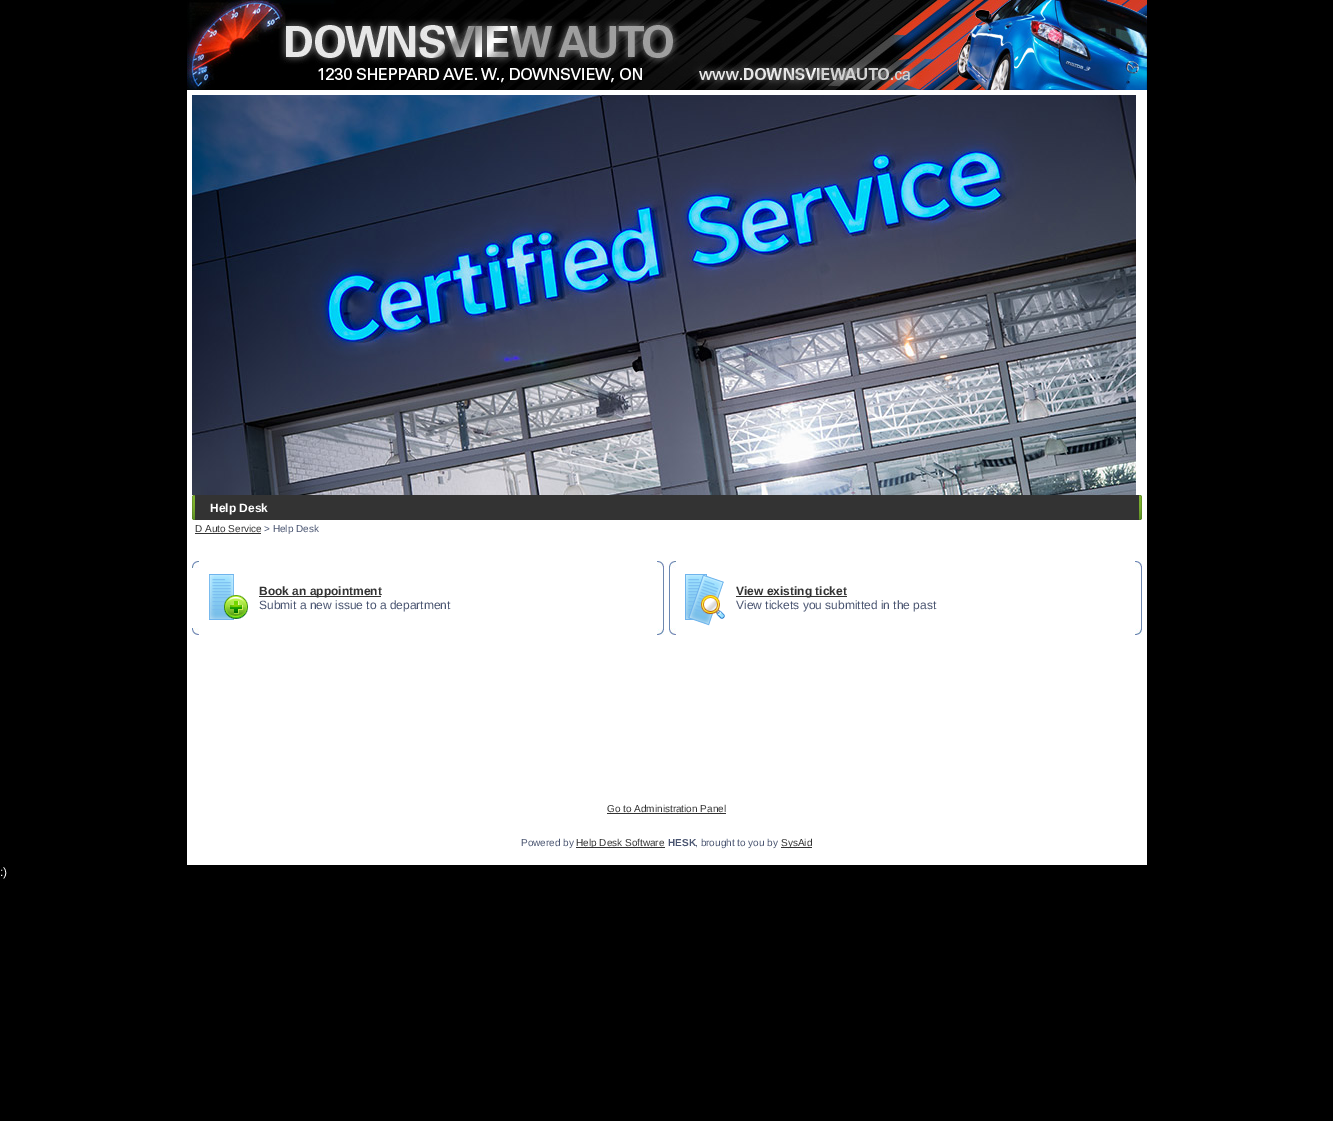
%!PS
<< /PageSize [1333 1121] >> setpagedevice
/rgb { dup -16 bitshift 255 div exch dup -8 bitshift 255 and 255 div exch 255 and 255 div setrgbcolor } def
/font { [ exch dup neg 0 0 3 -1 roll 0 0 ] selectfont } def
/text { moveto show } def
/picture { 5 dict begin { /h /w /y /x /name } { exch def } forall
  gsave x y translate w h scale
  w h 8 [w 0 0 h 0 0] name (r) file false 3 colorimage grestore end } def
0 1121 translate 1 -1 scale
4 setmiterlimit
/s1 { /LiberationSans-Bold 12 font 16#FFFFFF rgb } def
/s2 { /LiberationSans-Regular 10 font 16#333333 rgb } def
/s3 { /LiberationSans-Regular 10 font 16#4A5571 rgb } def
/s4 { /LiberationSans-Bold 12 font 16#333333 rgb } def
/s5 { /LiberationSans-Regular 12 font 16#4A5571 rgb } def
/s6 { /LiberationSans-Bold 10 font 16#4A5571 rgb } def
/s7 { /LiberationSans-Regular 12 font 16#FFFFFF rgb } def
16#000000 rgb
0 0 1333 1121 rectfill
(pic1.raw) 187 0 960 90 picture
16#FFFFFF rgb
187 90 960 775 rectfill
(pic2.raw) 192 95 944 400 picture
(pic3.raw) 192 495 3 25 picture
16#333333 rgb
195 495 944 25 rectfill
s1
(Help Desk) 210 512 text
(pic4.raw) 1139 495 3 25 picture
s2
(D Auto Service) 195 532 text
195 533 66 1 rectfill
s3
(> Help Desk) 264 532 text
(pic5.raw) 192 561 7 7 picture
(pic6.raw) 657 561 7 7 picture
(pic7.raw) 209 574 39 46 picture
16#333333 rgb
259 596 122 1 rectfill
s4
(Book an appointment) 259 595 text
s5
(Submit a new issue to a department) 259 609 text
16#6E87AF rgb
663 568 1 60 rectfill
(pic8.raw) 192 628 7 7 picture
(pic9.raw) 657 628 7 7 picture
(pic5.raw) 669 561 7 7 picture
(pic6.raw) 1135 561 7 7 picture
16#6D88B3 rgb
669 568 1 60 rectfill
(pic10.raw) 685 574 40 52 picture
16#333333 rgb
736 596 111 1 rectfill
s4
(View existing ticket) 736 595 text
s5
(View tickets you submitted in the past) 736 609 text
16#6E87AF rgb
1141 568 1 60 rectfill
(pic8.raw) 669 628 7 7 picture
(pic9.raw) 1135 628 7 7 picture
s2
(Go to Administration Panel) 607 812 text
607 813 119 1 rectfill
s3
(Powered by) 521 846 text
16#333333 rgb
576 847 89 1 rectfill
(Help Desk Software) 576 846 text
s6
(HESK) 668 846 text
s3
(, brought to you by) 695 846 text
16#333333 rgb
781 847 31 1 rectfill
(SysAid) 781 846 text
s7
(:\)) 0 876 text
showpage
